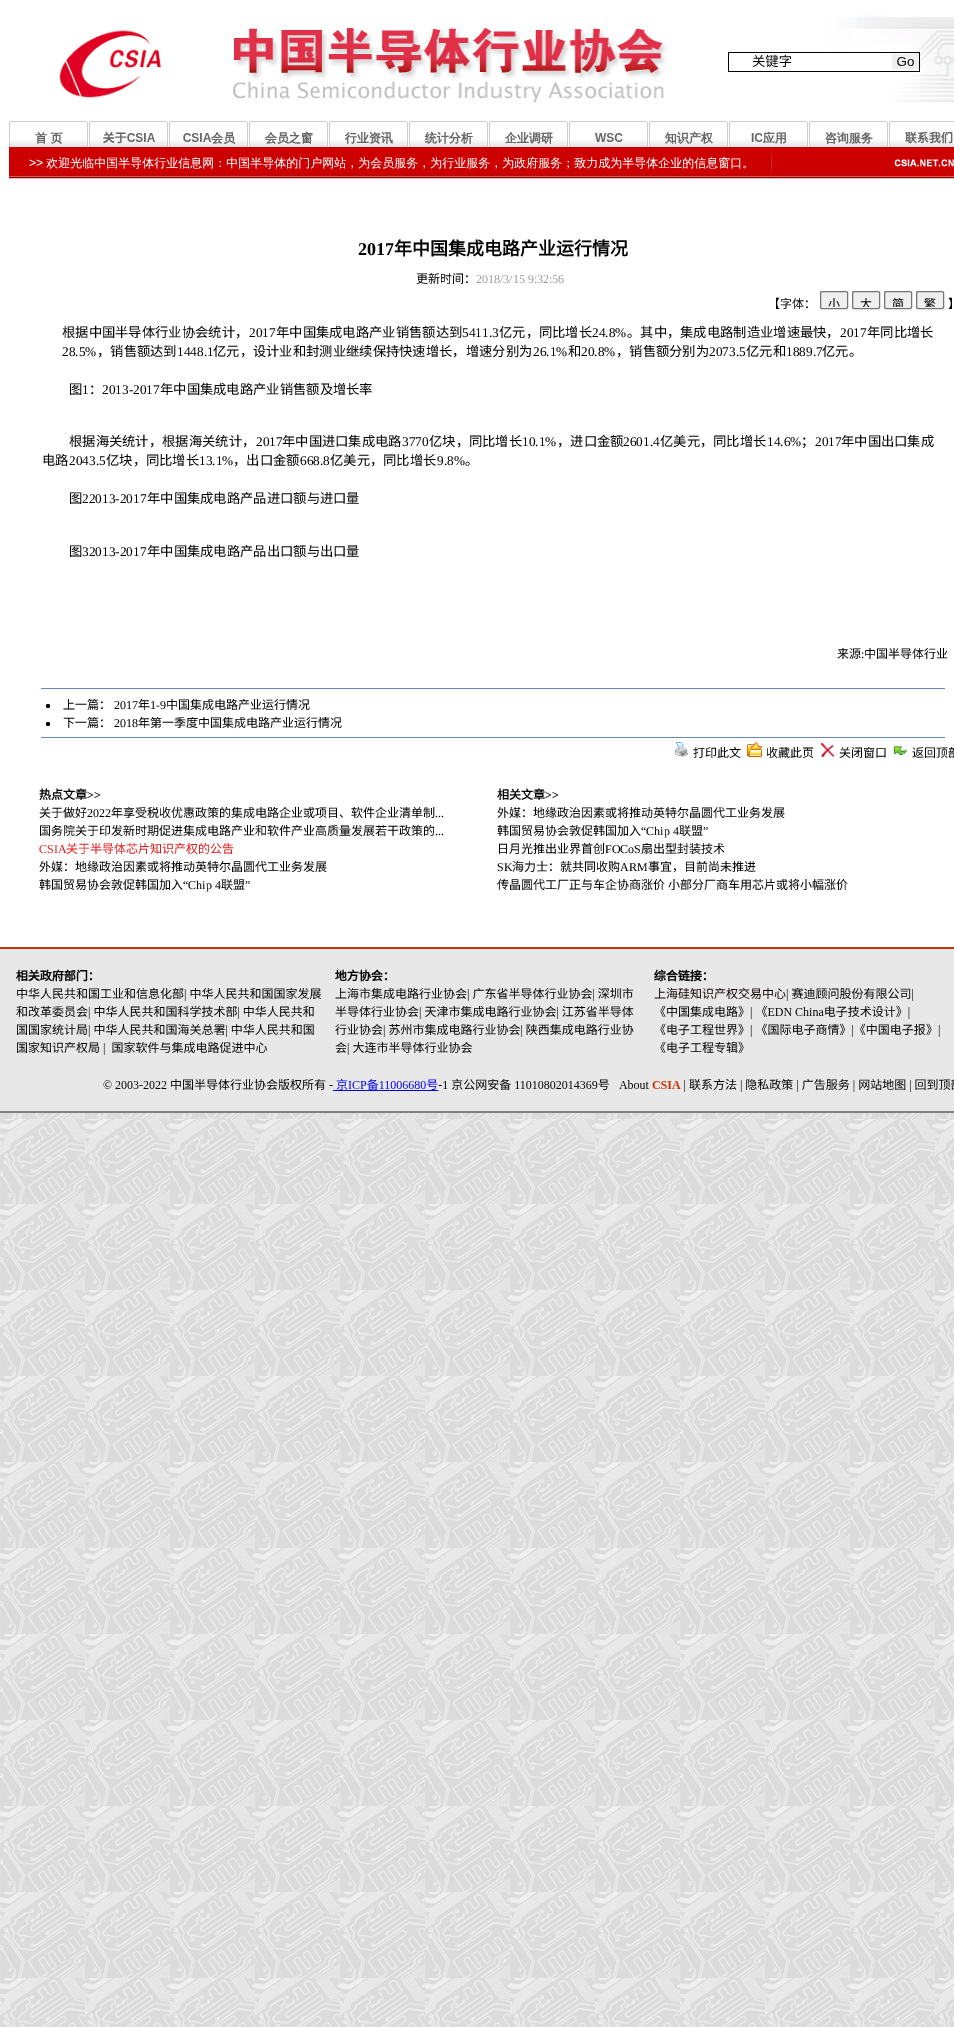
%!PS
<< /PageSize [954 2027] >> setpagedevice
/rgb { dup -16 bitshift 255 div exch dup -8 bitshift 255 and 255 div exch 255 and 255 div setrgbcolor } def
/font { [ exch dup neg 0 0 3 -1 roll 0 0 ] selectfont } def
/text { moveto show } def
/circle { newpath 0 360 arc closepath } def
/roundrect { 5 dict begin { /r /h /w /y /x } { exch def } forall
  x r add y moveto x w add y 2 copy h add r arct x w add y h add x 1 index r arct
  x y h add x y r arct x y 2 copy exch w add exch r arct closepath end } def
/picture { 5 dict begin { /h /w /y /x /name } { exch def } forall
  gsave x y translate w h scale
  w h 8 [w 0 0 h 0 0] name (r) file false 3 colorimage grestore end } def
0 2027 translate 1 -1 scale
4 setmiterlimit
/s1 { /LiberationSerif-Bold 18 font 16#000000 rgb } def
/s2 { /NotoSansCJKSC-Bold 18 font 16#000000 rgb } def
/s3 { /NotoSansCJKSC-Regular 12 font 16#000000 rgb } def
/s4 { /LiberationSerif-Regular 12 font 16#999999 rgb } def
/s5 { /NotoSansCJKSC-Regular 13.3 font 16#000000 rgb } def
/s6 { /LiberationSerif-Regular 13.3 font 16#000000 rgb } def
/s7 { /LiberationSerif-Regular 12 font 16#000000 rgb } def
/s8 { /NotoSansCJKSC-Bold 12 font 16#000000 rgb } def
/s9 { /LiberationSerif-Bold 12 font 16#000000 rgb } def
/s10 { /LiberationSerif-Regular 12 font 16#E61A1A rgb } def
/s11 { /NotoSansCJKSC-Regular 12 font 16#E61A1A rgb } def
16#FFFFFF rgb
0 0 954 2027 rectfill
(pic1.raw) 0 1120 954 907 picture
(pic2.raw) 9 15 945 164 picture
s1
(2017) 358 255 text
s2
(年中国集成电路产业运行情况) 394 255 text
s3
(更新时间：) 416 283 text
s4
(2018/3/15 9:32:56) 476 283 text
s3
(【字体：) 768 308 text
16#EFEFEF rgb
820.5 291.5 27 17 1.5 roundrect gsave fill grestore
16#767676 rgb
stroke
gsave
822 293 24 14 rectclip
s3
(小) 828 308 text
grestore
16#EFEFEF rgb
852.5 291.5 27 17 1.5 roundrect gsave fill grestore
16#767676 rgb
stroke
gsave
854 293 24 14 rectclip
s3
(大) 860 308 text
grestore
16#EFEFEF rgb
884.5 291.5 27 17 1.5 roundrect gsave fill grestore
16#767676 rgb
stroke
gsave
886 293 24 14 rectclip
s3
(简) 892 308 text
grestore
16#EFEFEF rgb
916.5 291.5 27 17 1.5 roundrect gsave fill grestore
16#767676 rgb
stroke
gsave
918 293 24 14 rectclip
s3
(繁) 924 308 text
grestore
s3
(】) 948 308 text
s5
(根据中国半导体行业协会统计，) 62 337 text
s6
(2017) 249 337 text
s5
(年中国集成电路产业销售额达到) 276 337 text
s6
(5411.3) 462 337 text
s5
(亿元，同比增长) 499 337 text
s6
(24.8%) 592 337 text
s5
(。其中，集成电路制造业增速最快，) 627 337 text
s6
(2017) 840 337 text
s5
(年同比增长) 867 337 text
s6
(28.5%) 62 356 text
s5
(，销售额达到) 97 356 text
s6
(1448.1) 177 356 text
s5
(亿元，设计业和封测业继续保持快速增长，增速分别为) 213 356 text
s6
(26.1%) 533 356 text
s5
(和) 568 356 text
s6
(20.8%) 581 356 text
s5
(，销售额分别为) 616 356 text
s6
(2073.5) 709 356 text
s5
(亿元和) 746 356 text
s6
(1889.7) 786 356 text
s5
(亿元。) 822 356 text
(图) 69 394 text
s6
(1) 82 394 text
s5
(：) 89 394 text
s6
(2013-2017) 102 394 text
s5
(年中国集成电路产业销售额及增长率) 160 394 text
(根据海关统计，根据海关统计，) 69 446 text
s6
(2017) 256 446 text
s5
(年中国进口集成电路) 282 446 text
s6
(3770) 402 446 text
s5
(亿块，同比增长) 429 446 text
s6
(10.1%) 522 446 text
s5
(，进口金额) 557 446 text
s6
(2601.4) 623 446 text
s5
(亿美元，同比增长) 660 446 text
s6
(14.6%) 767 446 text
s5
(；) 801 446 text
s6
(2017) 815 446 text
s5
(年中国出口集成) 841 446 text
(电路) 42 465 text
s6
(2043.5) 69 465 text
s5
(亿块，同比增长) 106 465 text
s6
(13.1%) 199 465 text
s5
(，出口金额) 233 465 text
s6
(668.8) 300 465 text
s5
(亿美元，同比增长) 330 465 text
s6
(9.8%) 437 465 text
s5
(。) 465 465 text
(图) 69 503 text
s6
(22013-2017) 82 503 text
s5
(年中国集成电路产品进口额与进口量) 147 503 text
(图) 69 556 text
s6
(32013-2017) 82 556 text
s5
(年中国集成电路产品出口额与出口量) 147 556 text
s3
(来源) 837 658 text
s7
(:) 861 658 text
s3
(中国半导体行业) 864 658 text
16#6687BA rgb
41 688 904 1 rectfill
41 737 904 1 rectfill
16#000000 rgb
48 706 2 circle fill
(上一篇：) 63 709 text
s7
(2017) 114 709 text
s3
(年) 138 709 text
s7
(1-9) 150 709 text
s3
(中国集成电路产业运行情况) 166 709 text
48 724 2 circle fill
(下一篇：) 63 727 text
s7
(2018) 114 727 text
s3
(年第一季度中国集成电路产业运行情况) 138 727 text
(pic3.raw) 675 742 14 15 picture
(打印此文) 693 757 text
(pic4.raw) 747 742 15 15 picture
(收藏此页) 766 757 text
(pic5.raw) 821 743 14 14 picture
(关闭窗口) 839 757 text
(pic6.raw) 894 746 13 9 picture
(返回顶部) 912 757 text
s8
(热点文章) 39 799 text
s9
(>>) 87 799 text
s3
(关于做好) 39 817 text
s7
(2022) 87 817 text
s3
(年享受税收优惠政策的集成电路企业或项目、软件企业清单制) 111 817 text
s7
(...) 435 817 text
s3
(国务院关于印发新时期促进集成电路产业和软件产业高质量发展若干政策的) 39 835 text
s7
(...) 435 835 text
s10
(CSIA) 39 853 text
s11
(关于半导体芯片知识产权的公告) 66 853 text
s3
(外媒：地缘政治因素或将推动英特尔晶圆代工业务发展) 39 871 text
(韩国贸易协会敦促韩国加入) 39 889 text
s7
(“Chip 4) 183 889 text
s3
(联盟) 221 889 text
s7
(”) 245 889 text
s8
(相关文章) 497 799 text
s9
(>>) 545 799 text
s3
(外媒：地缘政治因素或将推动英特尔晶圆代工业务发展) 497 817 text
(韩国贸易协会敦促韩国加入) 497 835 text
s7
(“Chip 4) 641 835 text
s3
(联盟) 679 835 text
s7
(”) 703 835 text
s3
(日月光推出业界首创) 497 853 text
s7
(FOCoS) 605 853 text
s3
(扇出型封装技术) 641 853 text
s7
(SK) 497 871 text
s3
(海力士：就共同收购) 512 871 text
s7
(ARM) 620 871 text
s3
(事宜，目前尚未推进) 648 871 text
(传晶圆代工厂正与车企协商涨价 小部分厂商车用芯片或将小幅涨价) 497 889 text
(pic7.raw) 0 947 954 173 picture
showpage
